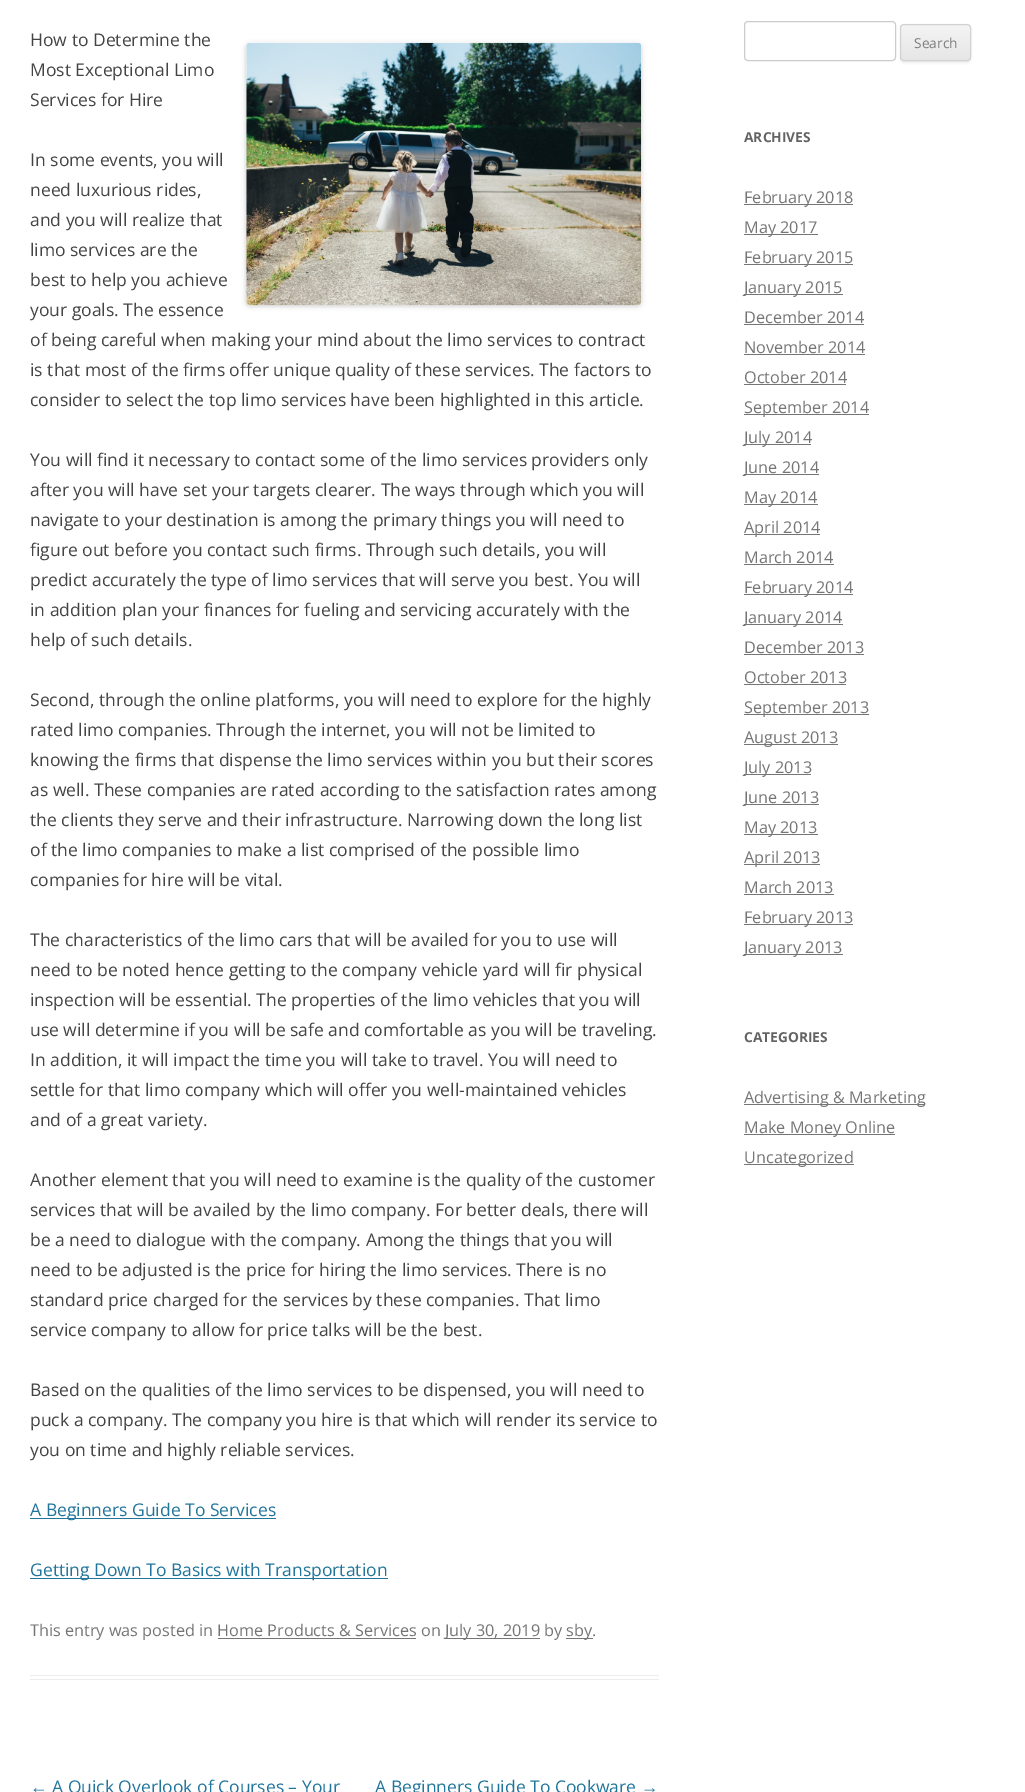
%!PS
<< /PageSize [1025 1792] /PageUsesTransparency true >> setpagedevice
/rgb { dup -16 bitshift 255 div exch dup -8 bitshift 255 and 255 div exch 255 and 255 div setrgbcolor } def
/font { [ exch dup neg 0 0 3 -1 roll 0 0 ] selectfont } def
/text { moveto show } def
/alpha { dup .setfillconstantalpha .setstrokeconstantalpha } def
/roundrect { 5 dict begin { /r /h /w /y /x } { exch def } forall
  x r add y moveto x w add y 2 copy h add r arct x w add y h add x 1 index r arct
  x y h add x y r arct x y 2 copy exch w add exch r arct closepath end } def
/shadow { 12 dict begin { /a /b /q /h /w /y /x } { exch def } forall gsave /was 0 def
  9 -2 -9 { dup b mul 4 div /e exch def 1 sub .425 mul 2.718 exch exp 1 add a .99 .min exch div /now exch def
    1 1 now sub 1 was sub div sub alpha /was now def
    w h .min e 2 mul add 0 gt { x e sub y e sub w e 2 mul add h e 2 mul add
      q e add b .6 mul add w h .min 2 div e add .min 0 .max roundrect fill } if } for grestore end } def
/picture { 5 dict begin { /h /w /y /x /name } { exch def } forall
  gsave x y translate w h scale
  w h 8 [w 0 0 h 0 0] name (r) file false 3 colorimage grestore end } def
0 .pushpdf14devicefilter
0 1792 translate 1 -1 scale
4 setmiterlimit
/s1 { /OpenSans-Regular 17.5 font 16#444444 rgb } def
/s2 { /OpenSans-Regular 17.5 font 16#21759B rgb } def
/s3 { /OpenSans-Regular 16.25 font 16#757575 rgb } def
/s4 { /LiberationSans-Regular 17.5 font 16#21759B rgb } def
/s5 { /OpenSans-Regular 13.75 font 16#7C7C7C rgb } def
/s6 { /OpenSans-Bold 13.75 font 16#636363 rgb } def
16#FFFFFF rgb
0 0 1025 1792 rectfill
16#EDEDED rgb
30 1675 629 1 rectfill
30 1679 629 1 rectfill
s1
(How to Determine the) 30 46 text
16#000000 rgb
246 44 395 262 4 2.5 0.2 shadow
(pic1.raw) 246 42 396 264 picture
s1
(Most Exceptional Limo) 30 76 text
(Services for Hire) 30 106 text
(In some events, you will) 30 166 text
(need luxurious rides,) 30 196 text
(and you will realize that) 30 226 text
(limo services are the) 30 256 text
(best to help you achieve) 30 286 text
(your goals. The essence) 30 316 text
(of being careful when making your mind about the limo services to contract) 30 346 text
(is that most of the firms offer unique quality of these services. The factors to) 30 376 text
(consider to select the top limo services have been highlighted in this article.) 30 406 text
(You will find it necessary to contact some of the limo services providers only) 30 466 text
(after you will have set your targets clearer. The ways through which you will) 30 496 text
(navigate to your destination is among the primary things you will need to) 30 526 text
(figure out before you contact such firms. Through such details, you will) 30 556 text
(predict accurately the type of limo services that will serve you best. You will) 30 586 text
(in addition plan your finances for fueling and servicing accurately with the) 30 616 text
(help of such details.) 30 646 text
(Second, through the online platforms, you will need to explore for the highly) 30 706 text
(rated limo companies. Through the internet, you will not be limited to) 30 736 text
(knowing the firms that dispense the limo services within you but their scores) 30 766 text
(as well. These companies are rated according to the satisfaction rates among) 30 796 text
(the clients they serve and their infrastructure. Narrowing down the long list) 30 826 text
(of the limo companies to make a list comprised of the possible limo) 30 856 text
(companies for hire will be vital.) 30 886 text
(The characteristics of the limo cars that will be availed for you to use will) 30 946 text
(need to be noted hence getting to the company vehicle yard will fir physical) 30 976 text
(inspection will be essential. The properties of the limo vehicles that you will) 30 1006 text
(use will determine if you will be safe and comfortable as you will be traveling.) 30 1036 text
(In addition, it will impact the time you will take to travel. You will need to) 30 1066 text
(settle for that limo company which will offer you well-maintained vehicles) 30 1096 text
(and of a great variety.) 30 1126 text
(Another element that you will need to examine is the quality of the customer) 30 1186 text
(services that will be availed by the limo company. For better deals, there will) 30 1216 text
(be a need to dialogue with the company. Among the things that you will) 30 1246 text
(need to be adjusted is the price for hiring the limo services. There is no) 30 1276 text
(standard price charged for the services by these companies. That limo) 30 1306 text
(service company to allow for price talks will be the best.) 30 1336 text
(Based on the qualities of the limo services to be dispensed, you will need to) 30 1396 text
(puck a company. The company you hire is that which will render its service to) 30 1426 text
(you on time and highly reliable services.) 30 1456 text
16#21759B rgb
30 1518 246 1 rectfill
(A Beginners Guide To Services) 30 1516 text
30 1578 358 1 rectfill
(Getting Down To Basics with Transportation) 30 1576 text
s3
(This entry was posted in Home Products & Services on) 30 1636 text
445 1638 95 1 rectfill
(July 30, 2019 by) 445 1636 text
566 1638 27 1 rectfill
(sby.) 566 1636 text
218 1638 198 1 rectfill
s4
(←) 30 1793 text
s2
(A Quick Overlook of Courses – Your) 52 1793 text
(A Beginners Guide To Cookware) 375 1793 text
s4
(→) 641 1793 text
16#CCCCCC rgb
744.5 21.5 151 39 3.5 roundrect stroke
16#404040 rgb
900 25 71 38 4 1 0.1 shadow
gsave
900 24 71 37 4 roundrect clip newpath
gsave 900 25 moveto 971 25 lineto 971 60 lineto 900 60 lineto closepath clip newpath
<< /ShadingType 2 /ColorSpace /DeviceRGB /Coords [936 25 936 60] /Extend [true true] /Function << /FunctionType 2 /Domain [0 1] /C0 [0.957 0.957 0.957] /C1 [0.902 0.902 0.902] /N 1 >> >> shfill grestore
grestore
16#D2D2D2 rgb
900.5 24.5 70 36 3.5 roundrect stroke
s5
(Search) 914 48 text
s6
(ARCHIVES) 744 142 text
16#757575 rgb
744 204 109 1 rectfill
s3
(February 2018) 744 203 text
744 234 74 1 rectfill
(May 2017) 744 233 text
744 264 109 1 rectfill
(February 2015) 744 263 text
744 294 99 1 rectfill
(January 2015) 744 293 text
(December 2014) 744 323 text
744 324 120 1 rectfill
(November 2014) 744 353 text
744 354 121 1 rectfill
(October 2014) 744 383 text
744 384 102 1 rectfill
744 414 125 1 rectfill
(September 2014) 744 413 text
744 444 67 1 rectfill
(July 2014) 744 443 text
744 474 75 1 rectfill
(June 2014) 744 473 text
744 504 74 1 rectfill
(May 2014) 744 503 text
744 534 76 1 rectfill
(April 2014) 744 533 text
(March 2014) 744 563 text
744 564 90 1 rectfill
744 594 109 1 rectfill
(February 2014) 744 593 text
744 624 99 1 rectfill
(January 2014) 744 623 text
(December 2013) 744 653 text
744 654 120 1 rectfill
(October 2013) 744 683 text
744 684 102 1 rectfill
744 714 125 1 rectfill
(September 2013) 744 713 text
744 744 94 1 rectfill
(August 2013) 744 743 text
744 774 67 1 rectfill
(July 2013) 744 773 text
744 804 75 1 rectfill
(June 2013) 744 803 text
744 834 74 1 rectfill
(May 2013) 744 833 text
744 864 76 1 rectfill
(April 2013) 744 863 text
(March 2013) 744 893 text
744 894 90 1 rectfill
744 924 109 1 rectfill
(February 2013) 744 923 text
744 954 99 1 rectfill
(January 2013) 744 953 text
s6
(CATEGORIES) 744 1042 text
16#757575 rgb
744 1104 181 1 rectfill
s3
(Advertising & Marketing) 744 1103 text
744 1134 151 1 rectfill
(Make Money Online) 744 1133 text
744 1164 110 1 rectfill
(Uncategorized) 744 1163 text
.poppdf14devicefilter showpage
